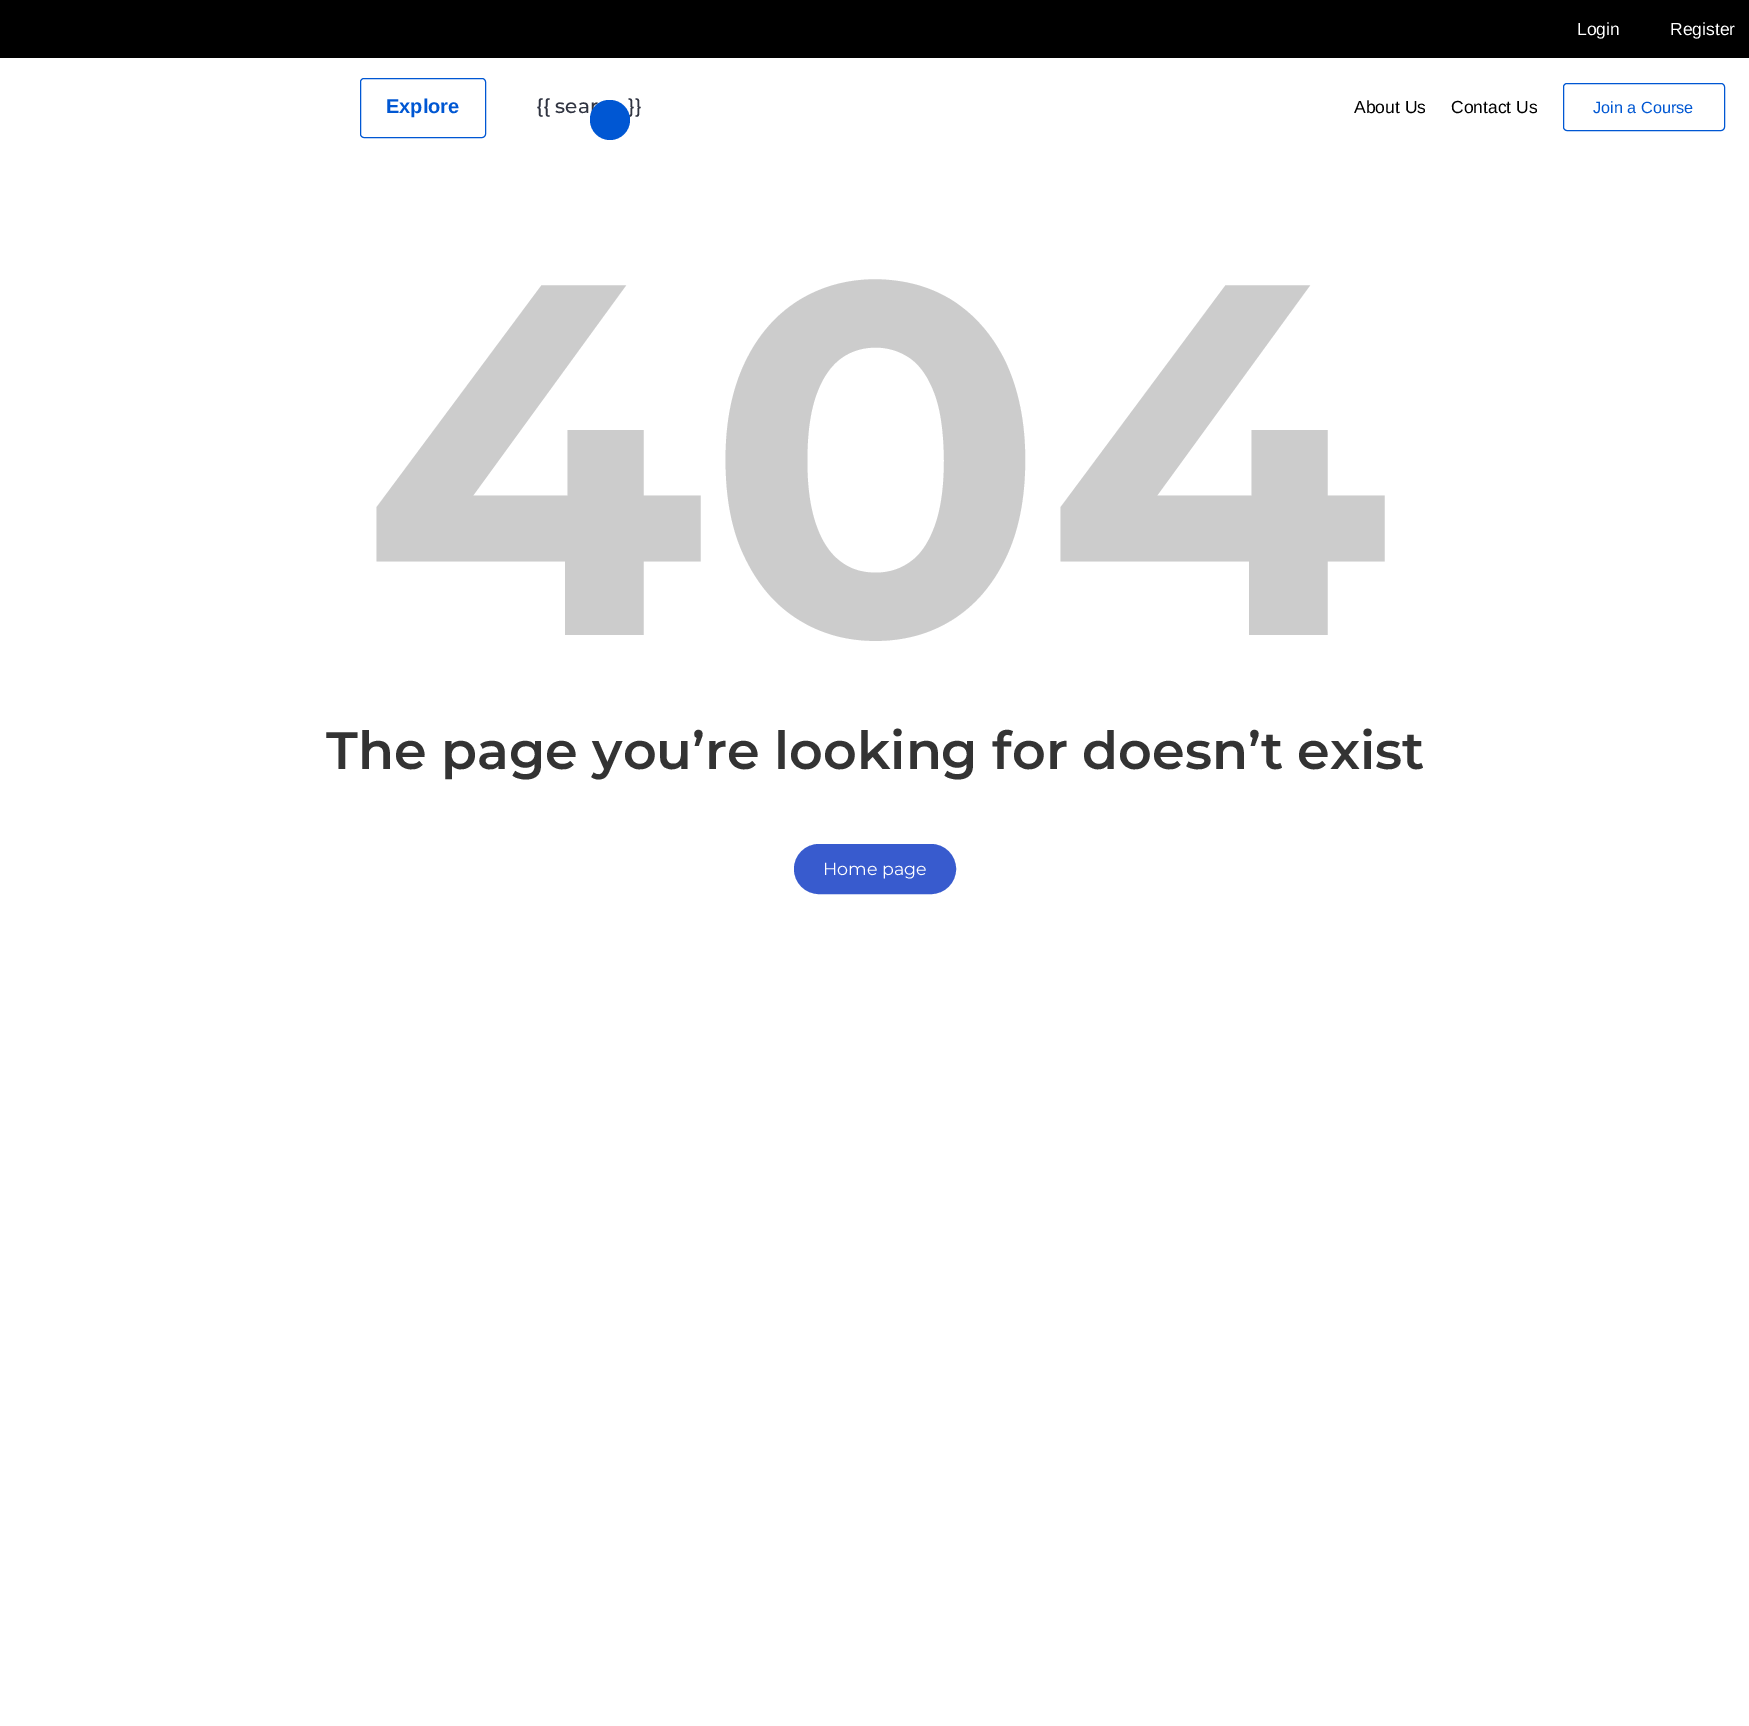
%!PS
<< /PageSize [1749 1726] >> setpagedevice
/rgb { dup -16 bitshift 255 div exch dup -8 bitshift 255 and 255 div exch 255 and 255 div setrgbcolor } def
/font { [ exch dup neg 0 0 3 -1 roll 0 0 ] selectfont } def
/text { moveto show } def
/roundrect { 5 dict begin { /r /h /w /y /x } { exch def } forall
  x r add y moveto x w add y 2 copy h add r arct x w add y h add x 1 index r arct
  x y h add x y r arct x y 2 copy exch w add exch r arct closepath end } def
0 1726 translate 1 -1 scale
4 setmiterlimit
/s1 { /LiberationSans-Regular 17.5 font 16#FFFFFF rgb } def
/s2 { /LiberationSans-Bold 20 font 16#0057D3 rgb } def
/s3 { /Montserrat-Medium 20 font 16#303441 rgb } def
/s4 { /LiberationSans-Regular 17.5 font 16#000000 rgb } def
/s5 { /LiberationSans-Regular 16.25 font 16#0057D3 rgb } def
/s6 { /Montserrat-Bold 500 font 16#CCCCCC rgb } def
/s7 { /Montserrat-SemiBold 52.5 font 16#333333 rgb } def
/s8 { /Montserrat-Regular 17.5 font 16#FFFFFF rgb } def
16#FFFFFF rgb
0 0 1749 1726 rectfill
16#000000 rgb
0 0 1749 58 rectfill
s1
(Login) 1577 35 text
(Register) 1670 35 text
16#0057D3 rgb
360.5 78.5 125 59 3.5 roundrect stroke
s2
(Explore) 386 113 text
s3
({{ sear) 536 113 text
(}}) 628 113 text
16#0057D3 rgb
609 100 moveto 610 100 lineto 621 100 630 109 630 120 curveto 630 131 621 140 610 140 curveto 599 140 590 131 590 120 curveto 590 119 lineto 590 108.5 598.5 100 609 100 curveto closepath fill
s4
(About Us) 1354 113 text
(Contact Us) 1451 113 text
16#0057D3 rgb
1563.5 83.5 161 47 3.5 roundrect stroke
s5
(Join a Course) 1593 113 text
s6
(404) 361 635 text
s7
(The page you’re looking for doesn’t exist) 326 769 text
16#385BCE rgb
795.5 845.5 159 47 23.5 roundrect gsave fill grestore
3 setlinewidth
stroke
s8
(Home page) 823 875 text
showpage
